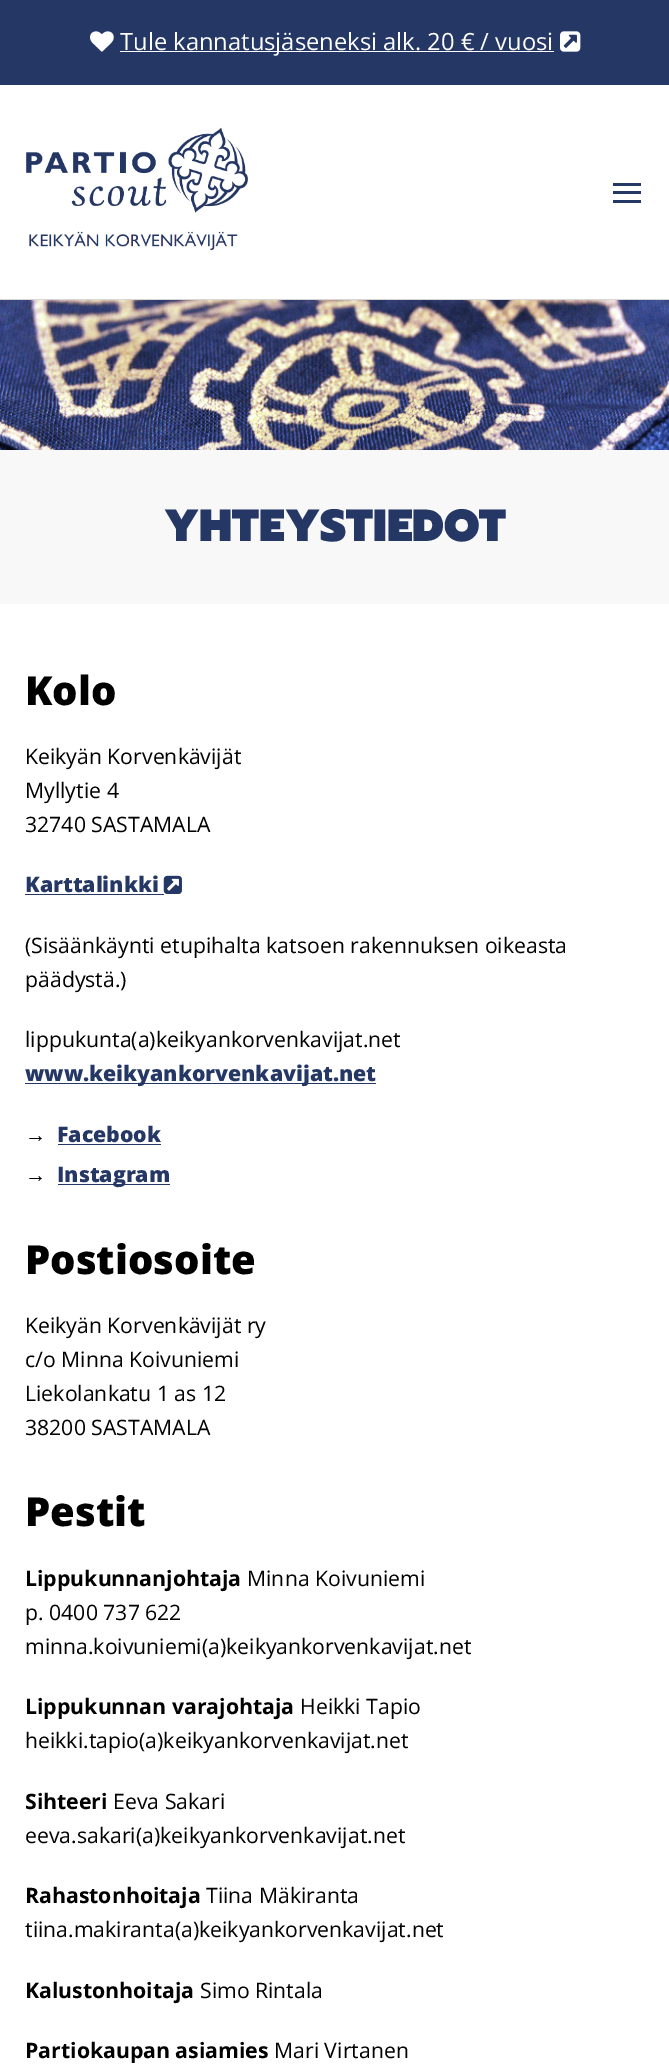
%!PS
<< /PageSize [669 2072] >> setpagedevice
/rgb { dup -16 bitshift 255 div exch dup -8 bitshift 255 and 255 div exch 255 and 255 div setrgbcolor } def
/font { [ exch dup neg 0 0 3 -1 roll 0 0 ] selectfont } def
/text { moveto show } def
/picture { 5 dict begin { /h /w /y /x /name } { exch def } forall
  gsave x y translate w h scale
  w h 8 [w 0 0 h 0 0] name (r) file false 3 colorimage grestore end } def
0 2072 translate 1 -1 scale
4 setmiterlimit
/s1 { /OpenSans-Regular 23.75 font 16#FFFFFF rgb } def
/s2 { /Prompt-Black 45 font 16#253764 rgb } def
/s3 { /OpenSans-ExtraBold 40 font 16#000000 rgb } def
/s4 { /OpenSans-Regular 21.25 font 16#000000 rgb } def
/s5 { /OpenSans-ExtraBold 21.25 font 16#253764 rgb } def
/s6 { /LiberationSans-Regular 21.25 font 16#000000 rgb } def
/s7 { /OpenSans-Bold 21.25 font 16#000000 rgb } def
16#FFFFFF rgb
0 0 669 2072 rectfill
16#253764 rgb
0 0 669 85 rectfill
(pic1.raw) 90 31 24 21 picture
16#FFFFFF rgb
120 51 434 1 rectfill
s1
(Tule kannatusjäseneksi alk. 20 € / vuosi) 120 50 text
(pic2.raw) 560 31 21 21 picture
16#D6D6D6 rgb
0 299 669 1 rectfill
(pic3.raw) 26 127 222 124 picture
16#253764 rgb
613 183 28 3 rectfill
613 200 28 3 rectfill
613 191 28 3 rectfill
(pic4.raw) 0 300 669 150 picture
16#F8F8F8 rgb
0 450 669 154 rectfill
s2
(YHTEYSTIEDOT) 164 541 text
s3
(Kolo) 25 705 text
s4
(Keikyän Korvenkävijät) 25 764 text
(Myllytie 4) 25 798 text
(32740 SASTAMALA) 25 832 text
s5
(Karttalinkki) 25 892 text
25 894 139 1 rectfill
(pic5.raw) 163 875 19 19 picture
s4
(\(Sisäänkäynti etupihalta katsoen rakennuksen oikeasta) 25 953 text
(päädystä.\)) 25 987 text
(lippukunta\(a\)keikyankorvenkavijat.net) 25 1047 text
16#253764 rgb
25 1083 351 1 rectfill
s5
(www.keikyankorvenkavijat.net) 25 1081 text
s6
(→) 25 1142 text
s5
(Facebook) 57 1142 text
58 1144 103 1 rectfill
s6
(→) 25 1182 text
16#253764 rgb
58 1184 112 1 rectfill
s5
(Instagram) 57 1182 text
s3
(Postiosoite) 25 1274 text
s4
(Keikyän Korvenkävijät ry) 25 1333 text
(c/o Minna Koivuniemi) 25 1367 text
(Liekolankatu 1 as 12) 25 1401 text
(38200 SASTAMALA) 25 1435 text
s3
(Pestit) 25 1526 text
s7
(Lippukunnanjohtaja) 25 1586 text
s4
(Minna Koivuniemi) 247 1586 text
(p. 0400 737 622) 25 1620 text
(minna.koivuniemi\(a\)keikyankorvenkavijat.net) 25 1654 text
s7
(Lippukunnan varajohtaja) 25 1714 text
s4
(Heikki Tapio) 300 1714 text
(heikki.tapio\(a\)keikyankorvenkavijat.net) 25 1748 text
s7
(Sihteeri) 25 1809 text
s4
(Eeva Sakari) 113 1809 text
(eeva.sakari\(a\)keikyankorvenkavijat.net) 25 1843 text
s7
(Rahastonhoitaja) 25 1903 text
s4
(Tiina Mäkiranta) 206 1903 text
(tiina.makiranta\(a\)keikyankorvenkavijat.net) 25 1937 text
s7
(Kalustonhoitaja) 25 1998 text
s4
(Simo Rintala) 200 1998 text
s7
(Partiokaupan asiamies) 25 2058 text
s4
(Mari Virtanen) 274 2058 text
showpage
